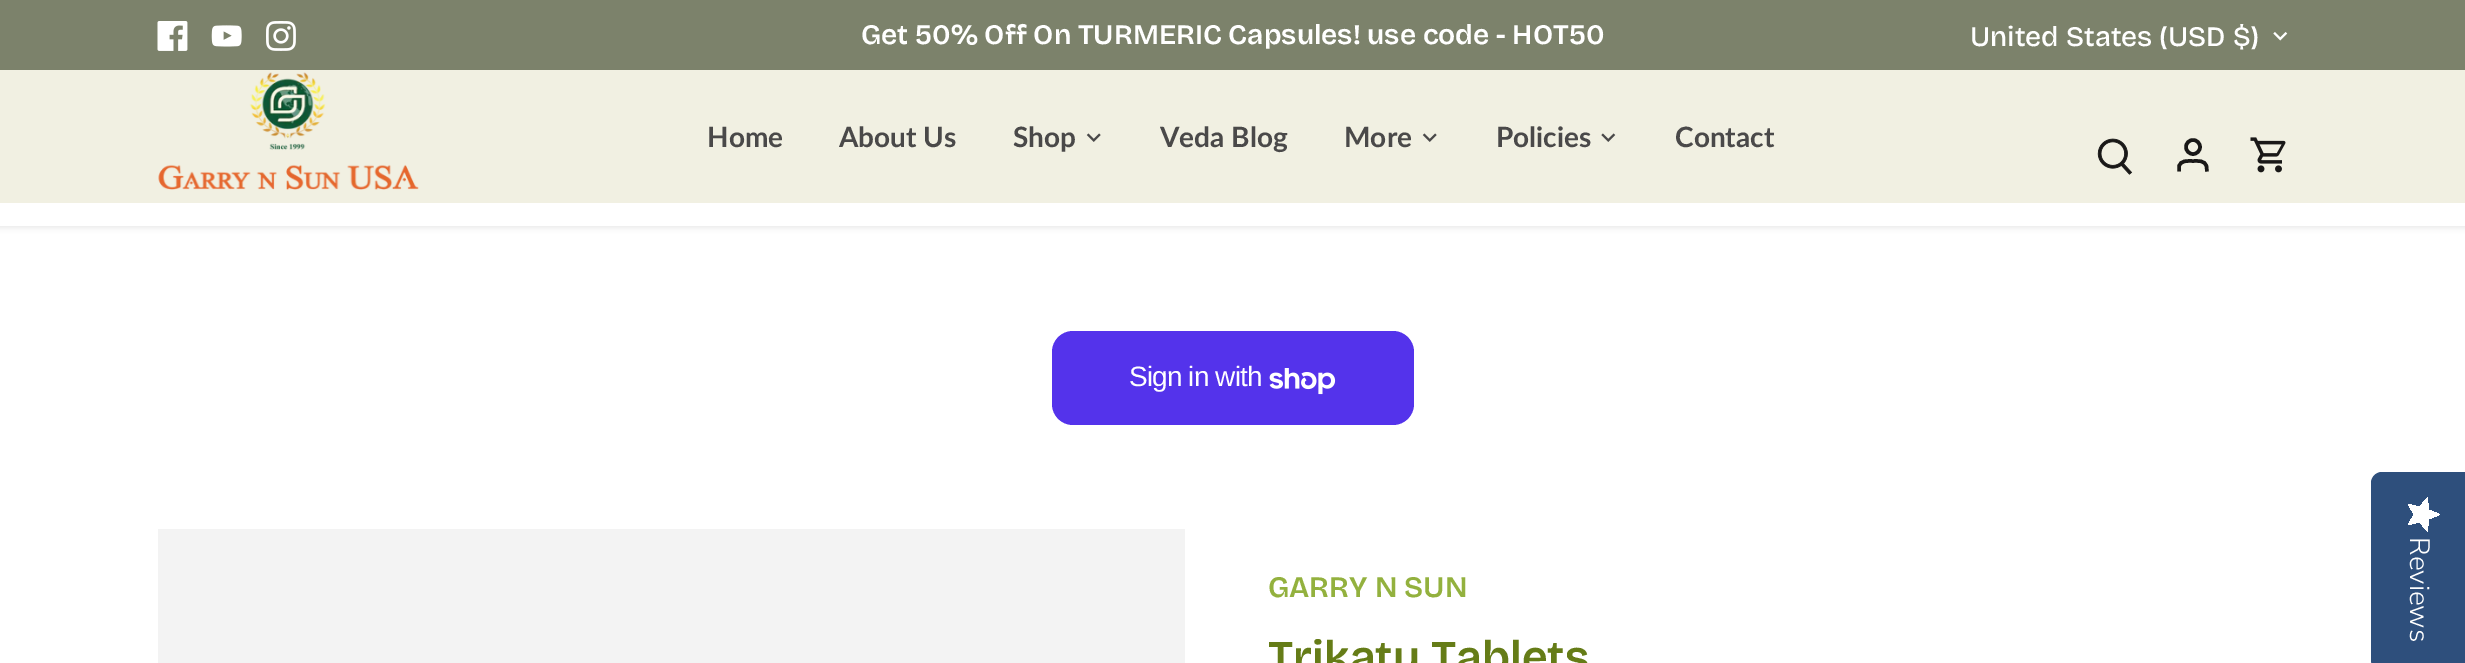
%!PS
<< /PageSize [2465 663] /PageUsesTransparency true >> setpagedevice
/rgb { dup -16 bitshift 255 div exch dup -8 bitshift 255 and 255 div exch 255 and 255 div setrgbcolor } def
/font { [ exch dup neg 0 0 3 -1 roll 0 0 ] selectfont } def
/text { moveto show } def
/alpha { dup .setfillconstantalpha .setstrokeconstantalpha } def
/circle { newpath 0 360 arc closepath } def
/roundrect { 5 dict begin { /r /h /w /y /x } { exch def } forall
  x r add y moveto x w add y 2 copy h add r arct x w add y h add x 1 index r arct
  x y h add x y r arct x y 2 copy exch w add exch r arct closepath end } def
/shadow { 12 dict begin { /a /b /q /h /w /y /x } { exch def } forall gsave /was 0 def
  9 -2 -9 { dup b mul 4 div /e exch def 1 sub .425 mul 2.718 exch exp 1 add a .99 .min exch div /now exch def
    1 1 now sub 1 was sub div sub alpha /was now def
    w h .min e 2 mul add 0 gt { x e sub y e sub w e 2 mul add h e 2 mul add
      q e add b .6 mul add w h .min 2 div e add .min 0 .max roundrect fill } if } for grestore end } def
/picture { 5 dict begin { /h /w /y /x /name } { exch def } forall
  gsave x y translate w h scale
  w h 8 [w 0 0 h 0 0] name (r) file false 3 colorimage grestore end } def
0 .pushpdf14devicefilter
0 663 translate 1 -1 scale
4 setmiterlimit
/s1 { /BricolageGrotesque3-SemiBold 28.25 font 16#FFFFFF rgb } def
/s2 { /BricolageGrotesque-Medium 28.25 font 16#FFFFFF rgb } def
/s3 { /Lato-Bold 28 font 16#4A4949 rgb } def
/s4 { /BricolageGrotesque-SemiBold 29.75 font 16#93B13E rgb } def
/s5 { /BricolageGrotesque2-SemiBold 45.5 font 16#657C17 rgb } def
16#FFFFFF rgb
0 0 2465 663 rectfill
16#000000 rgb
-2 68 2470 160 0 2.5 0.08 shadow
16#7C826B rgb
0 0 2465 70 rectfill
(pic1.raw) 157 21 31 30 picture
(pic2.raw) 211 25 31 22 picture
(pic3.raw) 266 21 30 30 picture
s1
(Get 50% Off On TURMERIC Capsules! use code - HOT50) 861 44 text
s2
(United States \(USD $\)) 1970 46 text
(pic4.raw) 2273 32 15 9 picture
0 203 2465 23 rectfill
16#F1F0E2 rgb
0 70 2465 133 rectfill
(pic5.raw) 2097 138 36 37 picture
16#191817 rgb
3.5 setlinewidth
2193 147 7 circle stroke
2207 171.5 moveto 2206.5 166.5 lineto 2205 160 2198 161 2193 161 curveto 2187.5 161 2180.5 160 2179 166.5 curveto 2179 171.5 lineto stroke
(pic6.raw) 2250 137 36 36 picture
(pic7.raw) 158 72 261 118 picture
s3
(Home) 707 147 text
(About Us) 839 147 text
(Shop) 1013 147 text
(pic8.raw) 1086 133 15 9 picture
(Veda Blog) 1160 147 text
(More) 1344 147 text
(pic8.raw) 1422 133 15 9 picture
(Policies) 1496 147 text
(pic9.raw) 1601 133 15 9 picture
(Contact) 1675 147 text
16#5433EB rgb
1052 331 362 94 21 roundrect fill
/LiberationSans-Regular 28 font
16#FFFFFF rgb
1129 386 moveto -0.9 0 (Sign in with) ashow
(pic10.raw) 1269 368 67 27 picture
16#F3F3F3 rgb
158 529 1027 134 rectfill
s4
(GARRY N SUN) 1268 597 text
s5
(Trikatu Tablets) 1268 672 text
16#2E4F7C rgb
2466 472 moveto 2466 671 lineto 2382 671 lineto 2376 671 2371 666 2371 660 curveto 2371 483 lineto 2371 477 2376 472 2382 472 curveto closepath fill
gsave 2414 514.5 moveto 2408 525 lineto 2419.5 522 lineto 2427.5 531.5 lineto 2428.5 519 lineto 2440 514.5 lineto 2428.5 510 lineto 2427.5 497.5 lineto 2419.5 507 lineto 2408 504 lineto closepath clip newpath
<< /ShadingType 2 /ColorSpace /DeviceRGB /Coords [2440 498 2440 531] /Extend [true true] /Function << /FunctionType 2 /Domain [0 1] /C0 [1 1 1] /C1 [1 1 1] /N 1 >> >> shfill grestore
/NunitoSans-Light 28 font
16#FFFFFF rgb
gsave 2410 537 translate 90 rotate 0 0 moveto (Reviews) show grestore
.poppdf14devicefilter showpage
